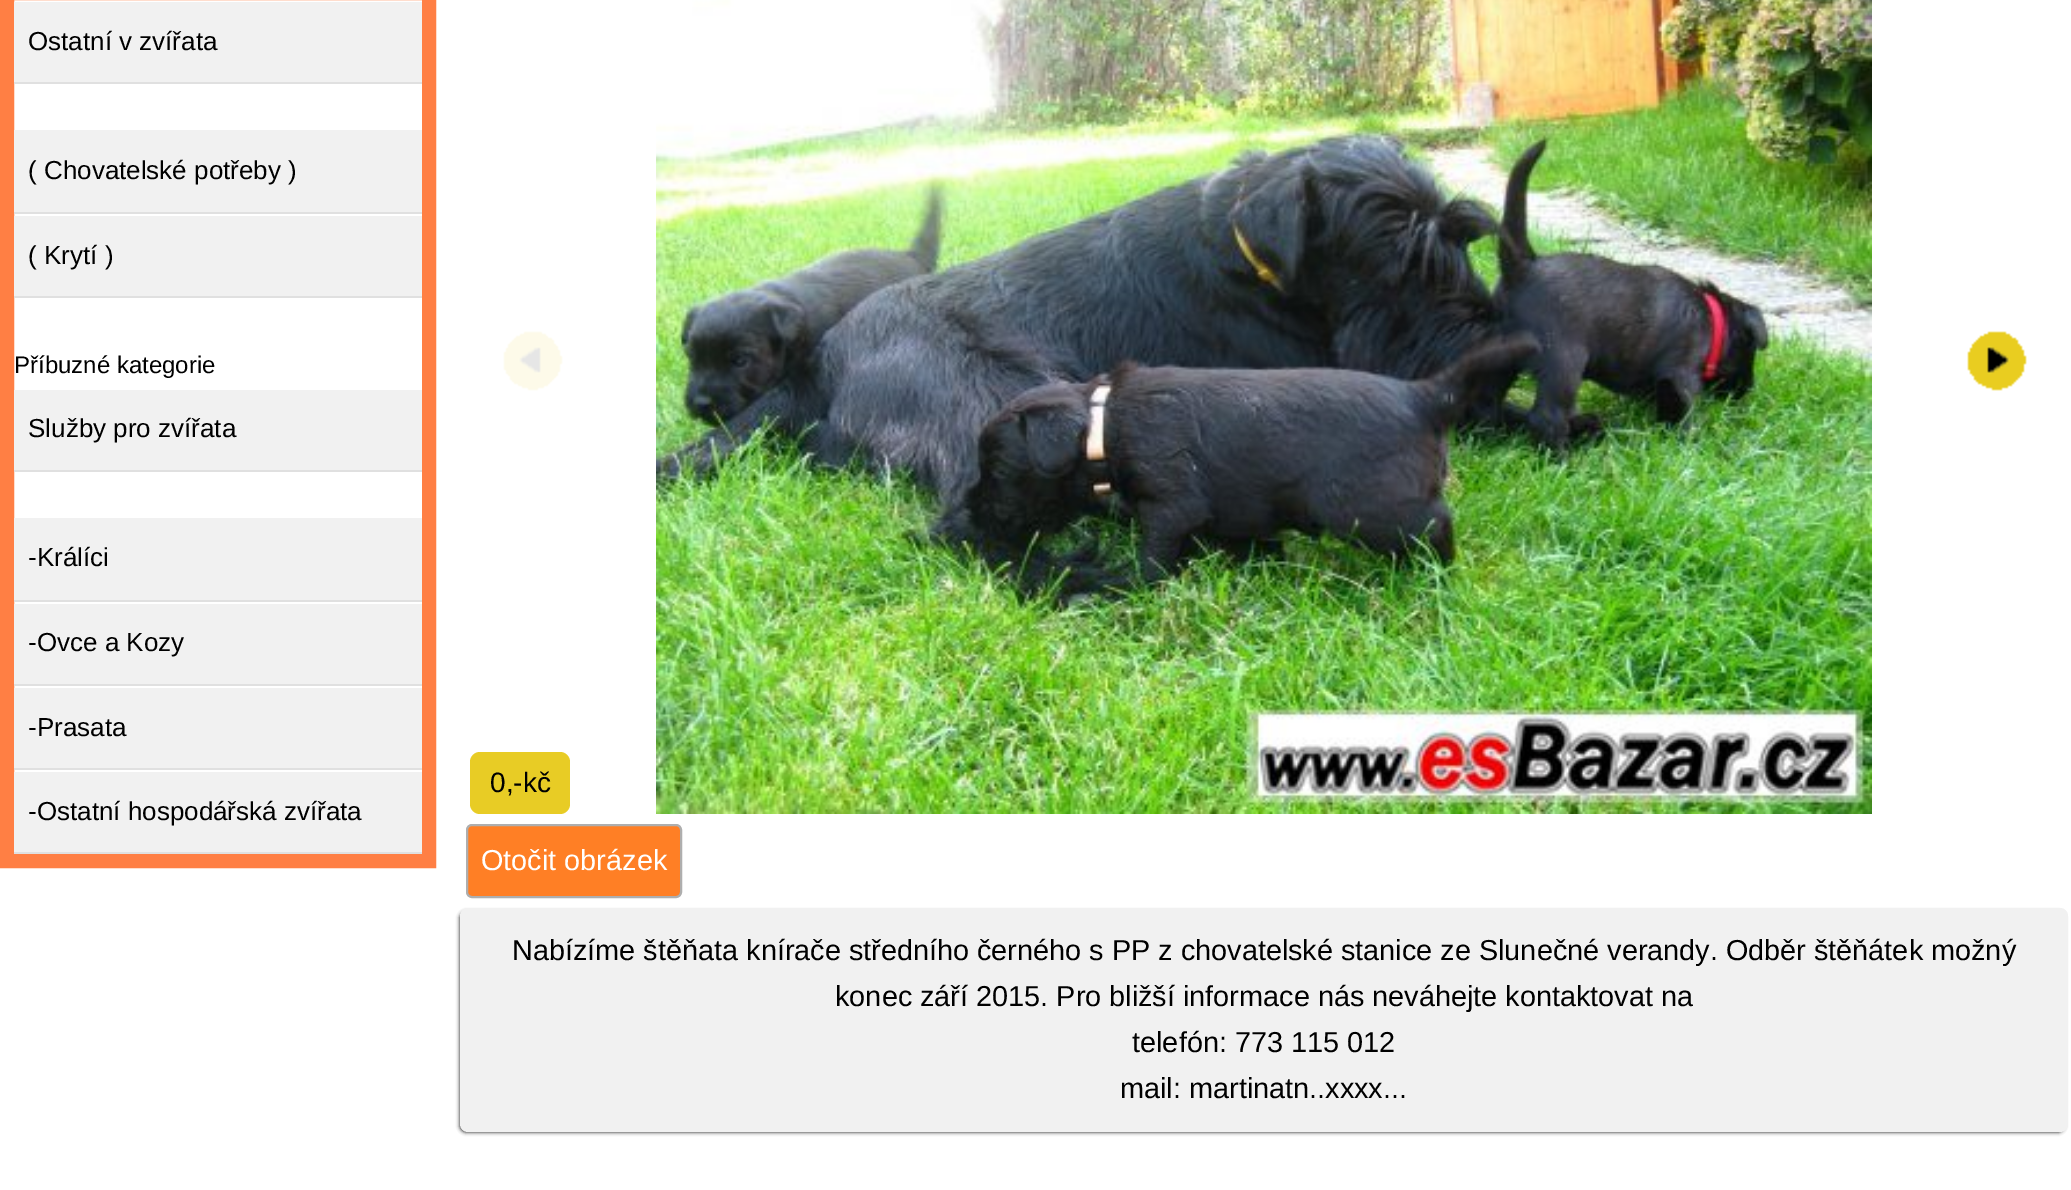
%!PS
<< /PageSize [2071 1190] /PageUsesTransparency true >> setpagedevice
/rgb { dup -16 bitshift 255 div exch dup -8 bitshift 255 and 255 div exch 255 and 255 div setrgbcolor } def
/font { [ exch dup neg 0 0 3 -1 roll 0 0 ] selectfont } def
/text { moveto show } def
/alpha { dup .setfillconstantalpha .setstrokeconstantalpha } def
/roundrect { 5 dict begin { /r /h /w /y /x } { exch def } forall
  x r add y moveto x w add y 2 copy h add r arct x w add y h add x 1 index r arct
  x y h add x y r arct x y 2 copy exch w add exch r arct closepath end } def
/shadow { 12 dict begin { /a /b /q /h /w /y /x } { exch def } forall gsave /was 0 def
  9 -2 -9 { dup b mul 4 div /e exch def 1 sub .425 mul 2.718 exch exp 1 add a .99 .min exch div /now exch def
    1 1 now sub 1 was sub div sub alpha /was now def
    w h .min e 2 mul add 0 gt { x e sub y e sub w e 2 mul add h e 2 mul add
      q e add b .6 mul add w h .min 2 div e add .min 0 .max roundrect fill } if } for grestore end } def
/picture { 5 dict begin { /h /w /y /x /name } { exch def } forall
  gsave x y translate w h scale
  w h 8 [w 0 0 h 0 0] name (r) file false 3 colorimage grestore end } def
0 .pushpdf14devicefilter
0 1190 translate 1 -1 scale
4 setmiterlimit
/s1 { /LiberationSans-Regular 26 font 16#000000 rgb } def
/s2 { /LiberationSans-Regular 24 font 16#000000 rgb } def
/s3 { /LiberationSans-Regular 28 font 16#000000 rgb } def
/s4 { /LiberationSans-Regular 28.85 font 16#FFFFFF rgb } def
/s5 { /LiberationSans-Regular 28.85 font 16#000000 rgb } def
16#FFFFFF rgb
0 0 2071 1190 rectfill
16#FF7F44 rgb
14 setlinewidth
7 -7 422 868 rectstroke
16#F1F1F1 rgb
14 2 408 80 rectfill
16#E0E0E0 rgb
14 82 408 2 rectfill
s1
(Ostatní v zvířata) 28 50 text
16#F1F1F1 rgb
14 130 408 82 rectfill
16#E0E0E0 rgb
14 212 408 2 rectfill
s1
(\( Chovatelské potřeby \)) 28 179 text
16#F1F1F1 rgb
14 216 408 80 rectfill
16#E0E0E0 rgb
14 296 408 2 rectfill
s1
(\( Krytí \)) 28 264 text
s2
(Příbuzné kategorie) 14 373 text
16#F1F1F1 rgb
14 390 408 80 rectfill
16#E0E0E0 rgb
14 470 408 2 rectfill
s1
(Služby pro zvířata) 28 437 text
16#F1F1F1 rgb
14 518 408 82 rectfill
16#E0E0E0 rgb
14 600 408 2 rectfill
s1
(-Králíci) 28 566 text
16#F1F1F1 rgb
14 604 408 80 rectfill
16#E0E0E0 rgb
14 684 408 2 rectfill
s1
(-Ovce a Kozy) 28 651 text
16#F1F1F1 rgb
14 688 408 80 rectfill
16#E0E0E0 rgb
14 768 408 2 rectfill
s1
(-Prasata) 28 736 text
16#F1F1F1 rgb
14 772 408 80 rectfill
16#E0E0E0 rgb
14 852 408 2 rectfill
s1
(-Ostatní hospodářská zvířata) 28 820 text
(pic1.raw) 503 331 60 60 picture
(pic2.raw) 1967 331 60 60 picture
16#E8CC25 rgb
470 752 100 62 10 roundrect fill
s3
(0,-kč) 490 792 text
(pic3.raw) 656 0 1216 814 picture
16#FF7F25 rgb
467 825 214 72 5 roundrect gsave fill grestore
16#AEAEAE rgb
2 setlinewidth
stroke
s4
(Otočit obrázek) 481 870 text
16#000000 rgb
460 912 1604 220 6 2 1 shadow
16#F1F1F1 rgb
460 908 1608 224 8 roundrect fill
s5
(Nabízíme štěňata knírače středního černého s PP z chovatelské stanice ze Slunečné verandy. Odběr štěňátek možný) 512 960 text
(konec září 2015. Pro bližší informace nás neváhejte kontaktovat na) 835 1006 text
(telefón: 773 115 012) 1132 1052 text
(mail: martinatn..xxxx...) 1120 1098 text
.poppdf14devicefilter showpage
